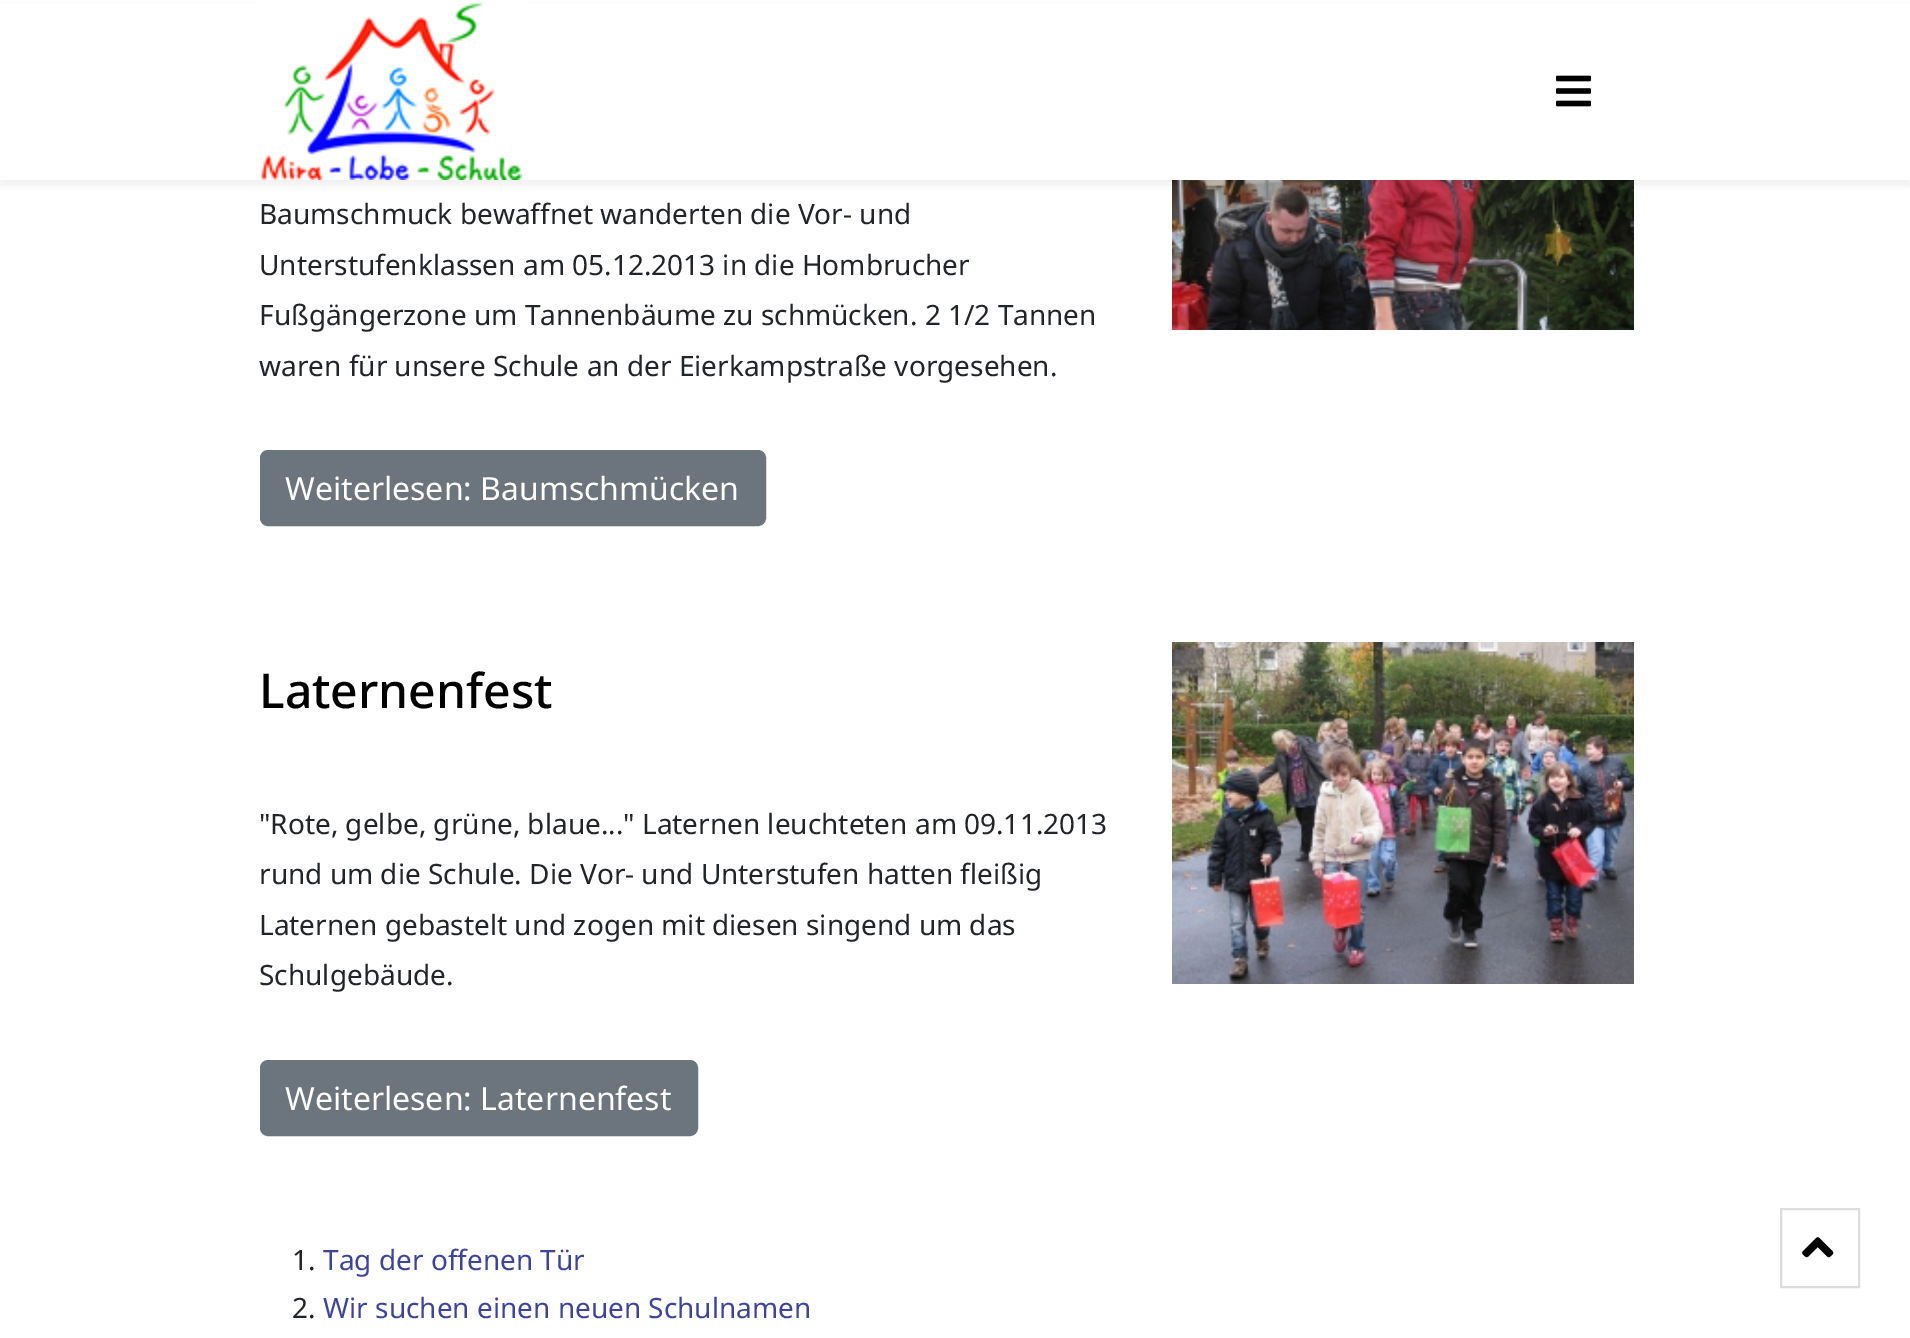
%!PS
<< /PageSize [1910 1338] /PageUsesTransparency true >> setpagedevice
/rgb { dup -16 bitshift 255 div exch dup -8 bitshift 255 and 255 div exch 255 and 255 div setrgbcolor } def
/font { [ exch dup neg 0 0 3 -1 roll 0 0 ] selectfont } def
/text { moveto show } def
/alpha { dup .setfillconstantalpha .setstrokeconstantalpha } def
/roundrect { 5 dict begin { /r /h /w /y /x } { exch def } forall
  x r add y moveto x w add y 2 copy h add r arct x w add y h add x 1 index r arct
  x y h add x y r arct x y 2 copy exch w add exch r arct closepath end } def
/shadow { 12 dict begin { /a /b /q /h /w /y /x } { exch def } forall gsave /was 0 def
  9 -2 -9 { dup b mul 4 div /e exch def 1 sub .425 mul 2.718 exch exp 1 add a .99 .min exch div /now exch def
    1 1 now sub 1 was sub div sub alpha /was now def
    w h .min e 2 mul add 0 gt { x e sub y e sub w e 2 mul add h e 2 mul add
      q e add b .6 mul add w h .min 2 div e add .min 0 .max roundrect fill } if } for grestore end } def
/picture { 5 dict begin { /h /w /y /x /name } { exch def } forall
  gsave x y translate w h scale
  w h 8 [w 0 0 h 0 0] name (r) file false 3 colorimage grestore end } def
0 .pushpdf14devicefilter
0 1338 translate 1 -1 scale
4 setmiterlimit
/s1 { /NotoSans-Regular 28 font 16#212529 rgb } def
/s2 { /NotoSans-Regular 32 font 16#FFFFFF rgb } def
/s3 { /NotoSans-Medium 48 font 16#000000 rgb } def
/s4 { /NotoSans-Regular 28 font 16#3D449A rgb } def
16#FFFFFF rgb
0 0 1910 1338 rectfill
(pic3.raw) 1172 180 462 150 picture
16#000000 rgb
0 6 1910 180 0 3 0.05 shadow
16#FFFFFF rgb
0 3 1910 177 rectfill
(pic1.raw) 261 1 261 179 picture
(pic2.raw) 1556 75 35 32 picture
s1
(Baumschmuck bewaffnet wanderten die Vor- und) 259 224 text
(Unterstufenklassen am 05.12.2013 in die Hombrucher) 259 275 text
(Fußgängerzone um Tannenbäume zu schmücken. 2 1/2 Tannen) 259 325 text
(waren für unsere Schule an der Eierkampstraße vorgesehen.) 259 376 text
16#6C757D rgb
261 451 504 74 7 roundrect gsave fill grestore
2 setlinewidth
stroke
s2
(Weiterlesen: Baumschmücken) 285 500 text
s3
(Laternenfest) 259 708 text
(pic4.raw) 1172 642 462 342 picture
s1
("Rote, gelbe, grüne, blaue..." Laternen leuchteten am 09.11.2013) 259 834 text
(rund um die Schule. Die Vor- und Unterstufen hatten fleißig) 259 884 text
(Laternen gebastelt und zogen mit diesen singend um das) 259 935 text
(Schulgebäude.) 259 985 text
16#6C757D rgb
261 1061 436 74 7 roundrect gsave fill grestore
stroke
s2
(Weiterlesen: Laternenfest) 285 1110 text
s1
(1.) 292 1270 text
s4
(Tag der offenen Tür) 323 1270 text
s1
(2.) 292 1318 text
s4
(Wir suchen einen neuen Schulnamen) 323 1318 text
16#DDDDDD rgb
1781 1209 78 78 rectstroke
(pic5.raw) 1802 1237 32 21 picture
.poppdf14devicefilter showpage
